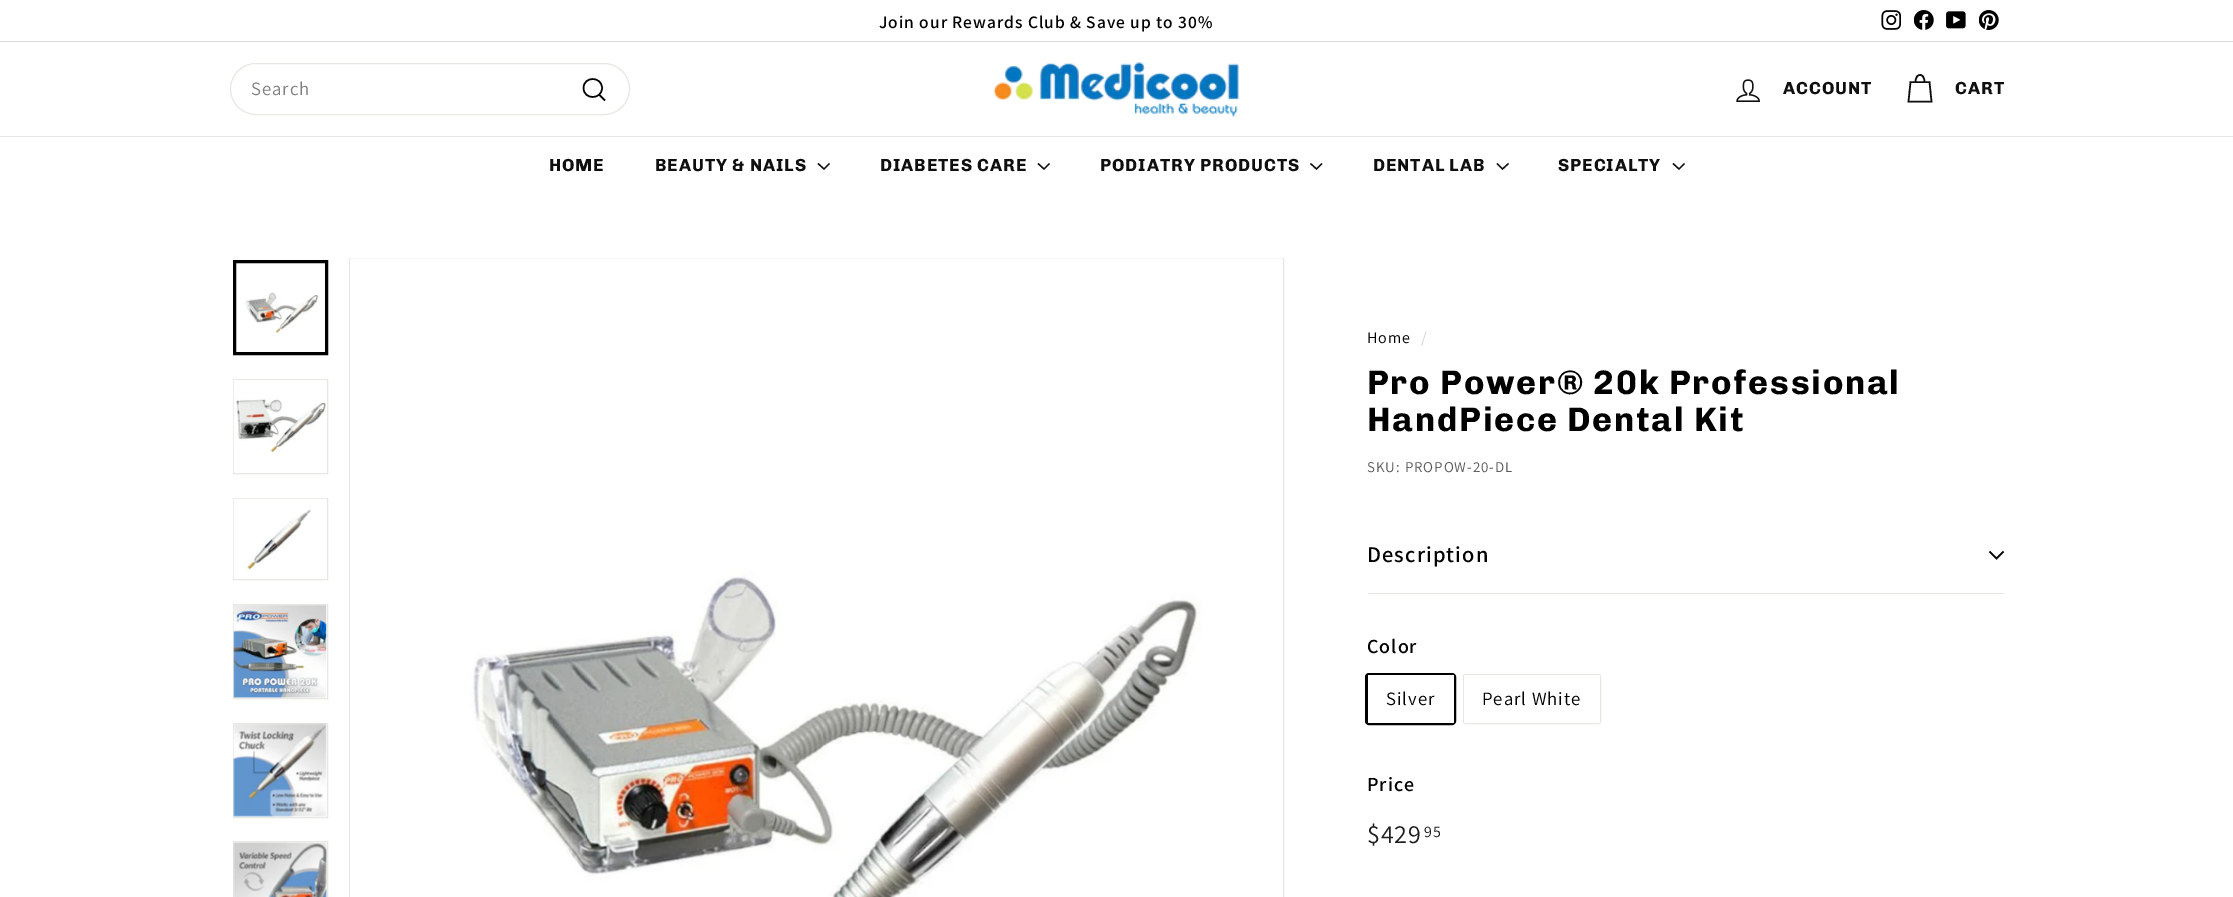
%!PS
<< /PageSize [2233 897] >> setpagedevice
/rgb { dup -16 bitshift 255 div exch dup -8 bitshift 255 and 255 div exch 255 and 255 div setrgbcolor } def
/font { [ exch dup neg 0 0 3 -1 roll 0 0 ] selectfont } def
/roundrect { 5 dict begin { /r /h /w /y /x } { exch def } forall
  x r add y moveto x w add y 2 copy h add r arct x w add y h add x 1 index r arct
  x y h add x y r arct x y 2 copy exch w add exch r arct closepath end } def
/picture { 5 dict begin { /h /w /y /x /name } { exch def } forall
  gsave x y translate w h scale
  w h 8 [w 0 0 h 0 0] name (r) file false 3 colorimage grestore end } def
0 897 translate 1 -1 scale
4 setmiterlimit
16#FFFFFF rgb
0 0 2233 897 rectfill
/Assistant-SemiBold 17.5 font
16#000000 rgb
879 28 moveto 0.95 0 (Join our Rewards Club & Save up to 30%) ashow
(pic1.raw) 1881 10 20 20 picture
(pic2.raw) 1914 10 20 20 picture
(pic3.raw) 1946 11 20 18 picture
(pic4.raw) 1979 10 20 20 picture
16#D9D9D9 rgb
0 41 2233 1 rectfill
16#E8E8E1 rgb
230.5 63.5 399 51 25.5 roundrect stroke
/Assistant-Regular 18.75 font
16#808080 rgb
251 95 moveto 0.95 0 (Search) ashow
16#000000 rgb
1.5 setlinewidth
602 88 moveto 602 100 583.5 100 583.5 88 curveto 583.5 76 602 76 602 88 curveto closepath 605 100.5 moveto 599 94.5 lineto stroke
(pic5.raw) 993 62 246 55 picture
(pic6.raw) 1736 79 24 23 picture
/Chivo-Bold 17.5 font
16#0F0F0F rgb
1783 94 moveto 0.9 0 (ACCOUNT) ashow
1.6 setlinewidth
1915.5 82 moveto 1915.5 72.5 1924.5 72.5 1924.5 82 curveto 1910.5 82 moveto 1929.5 82 lineto 1931.5 101.5 lineto 1908.5 101.5 lineto closepath stroke
1955 94 moveto 0.9 0 (CART) ashow
16#E7E7E7 rgb
0 136 2233 1 rectfill
16#0F0F0F rgb
549 171 moveto 0.9 0 (HOME) ashow
655 171 moveto 0.9 0 (BEAUTY & NAILS) ashow
1.3 setlinewidth
818 163.5 moveto 824 169 lineto 829.5 163.5 lineto stroke
880 171 moveto 0.9 0 (DIABETES CARE) ashow
1038 163.5 moveto 1044 169 lineto 1049.5 163.5 lineto stroke
1100 171 moveto 0.9 0 (PODIATRY PRODUCTS) ashow
1310.5 163.5 moveto 1316.5 169 lineto 1322 163.5 lineto stroke
1373 171 moveto 0.9 0 (DENTAL LAB) ashow
1497 163.5 moveto 1502.5 169 lineto 1508.5 163.5 lineto stroke
1558 171 moveto 0.9 0 (SPECIALTY) ashow
1673 163.5 moveto 1679 169 lineto 1684.5 163.5 lineto stroke
(pic7.raw) 236 263 83 89 picture
16#000000 rgb
3 setlinewidth
234.5 261.5 92 92 rectstroke
16#E8E8E1 rgb
1 setlinewidth
233.5 379.5 94 94 rectstroke
(pic8.raw) 233 380 93 92 picture
233.5 498.5 94 81 rectstroke
(pic9.raw) 233 498 93 81 picture
233.5 604.5 94 94 rectstroke
(pic10.raw) 233 605 94 93 picture
233.5 723.5 94 94 rectstroke
(pic11.raw) 233 723 94 94 picture
233.5 841.5 94 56 rectstroke
(pic12.raw) 233 842 94 55 picture
349.5 258.5 934 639 rectstroke
(pic13.raw) 350 258 933 639 picture
/Assistant-Regular 16 font
16#000000 rgb
1367 343 moveto 0.95 0 (Home) ashow
16#CCCCCC rgb
1421 343 moveto 0.95 0 (/) ashow
/Chivo-Bold 34 font
16#000000 rgb
1367 394 moveto 1.7 0 (Pro Power® 20k Professional) ashow
1367 431 moveto 1.7 0 (HandPiece Dental Kit) ashow
/Assistant-Regular 15 font
16#595959 rgb
1367 472 moveto 0.95 0 (SKU: PROPOW-20-DL) ashow
16#E8E8E1 rgb
1368 593 636 1 rectfill
/Assistant-SemiBold 22.5 font
16#000000 rgb
1367 562 moveto 1.1 0 (Description) ashow
1.6 setlinewidth
1989.5 551.5 moveto 1996.5 558.5 lineto 2003.5 551.5 lineto stroke
/Assistant-SemiBold 20 font
1367 653 moveto 0.95 0 (Color) ashow
3 setlinewidth
1366.5 674.5 88 49 2.5 roundrect stroke
16#FFFFFF rgb
1368 675 86 48 1 roundrect fill
/Assistant-Regular 18.75 font
16#000000 rgb
1386 705 moveto 0.95 0 (Silver) ashow
16#E8E8E1 rgb
1 setlinewidth
1463.5 674.5 137 49 2 roundrect stroke
16#FFFFFF rgb
1464 675 136 48 1 roundrect fill
16#000000 rgb
1482 705 moveto 0.95 0 (Pearl White) ashow
/Assistant-SemiBold 20 font
1367 791 moveto 0.95 0 (Price) ashow
/Assistant-Regular 26 font
16#1C1D1D rgb
1367 843 moveto 0.95 0 ($429) ashow
/Assistant-Regular 16 font
1424 837 moveto 0.95 0 (95) ashow
showpage
